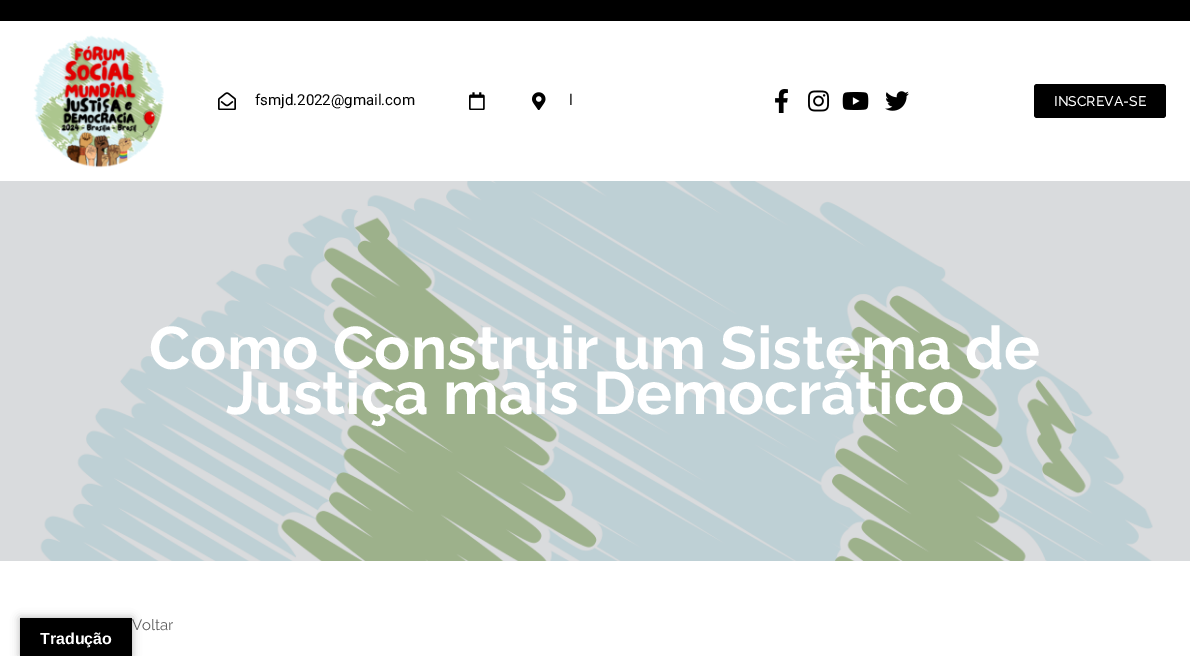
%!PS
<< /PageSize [1190 656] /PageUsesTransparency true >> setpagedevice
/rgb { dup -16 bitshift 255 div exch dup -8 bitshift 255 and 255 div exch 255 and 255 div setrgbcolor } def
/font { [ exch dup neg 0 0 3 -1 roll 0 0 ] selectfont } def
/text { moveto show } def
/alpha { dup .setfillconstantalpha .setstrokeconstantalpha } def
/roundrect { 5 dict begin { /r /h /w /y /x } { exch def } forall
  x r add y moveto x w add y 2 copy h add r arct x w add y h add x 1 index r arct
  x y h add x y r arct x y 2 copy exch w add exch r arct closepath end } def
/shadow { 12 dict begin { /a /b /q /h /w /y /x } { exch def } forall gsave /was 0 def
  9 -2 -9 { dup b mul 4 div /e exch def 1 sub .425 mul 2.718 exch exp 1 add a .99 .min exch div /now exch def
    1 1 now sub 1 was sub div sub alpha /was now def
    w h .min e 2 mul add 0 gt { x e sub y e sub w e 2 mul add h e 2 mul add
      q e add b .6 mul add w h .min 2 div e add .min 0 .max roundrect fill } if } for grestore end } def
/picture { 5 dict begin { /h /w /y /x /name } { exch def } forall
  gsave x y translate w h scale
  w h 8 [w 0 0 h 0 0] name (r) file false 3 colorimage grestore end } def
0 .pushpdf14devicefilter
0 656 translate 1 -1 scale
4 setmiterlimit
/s1 { /Roboto-Regular 15 font 16#000000 rgb } def
/s2 { /Raleway-Medium 14 font 16#FFFFFF rgb } def
/s3 { /Raleway-Bold 60 font 16#FFFFFF rgb } def
/s4 { /Raleway-Regular 15 font 16#5C5C5C rgb } def
/s5 { /LiberationSans-Bold 16 font 16#FFFFFF rgb } def
16#FFFFFF rgb
0 0 1190 656 rectfill
16#D9DBDD rgb
0 181 1190 380 rectfill
16#000000 rgb
0 0 1190 21 rectfill
(pic1.raw) 33 35 131 133 picture
(pic2.raw) 218 92 18 18 picture
s1
(fsmjd.2022@gmail.com) 255 105 text
(pic3.raw) 469 92 16 18 picture
(pic4.raw) 532 92 14 18 picture
(l) 569 105 text
(pic5.raw) 775 89 13 24 picture
(pic6.raw) 808 90 22 22 picture
(pic7.raw) 842 92 27 18 picture
(pic8.raw) 885 91 24 20 picture
1034 84 132 34 3 roundrect fill
s2
(INSCREVA-SE) 1054 106 text
(pic9.raw) 40 181 1113 380 picture
s3
(Como Construir um Sistema de) 149 369 text
(Justiça mais Democrático) 226 414 text
s4
(Voltar) 132 630 text
16#000000 rgb
20 618 112 38 0 4.5 0.3 shadow
20 618 112 38 rectfill
s5
(Tradução) 40 644 text
.poppdf14devicefilter showpage
